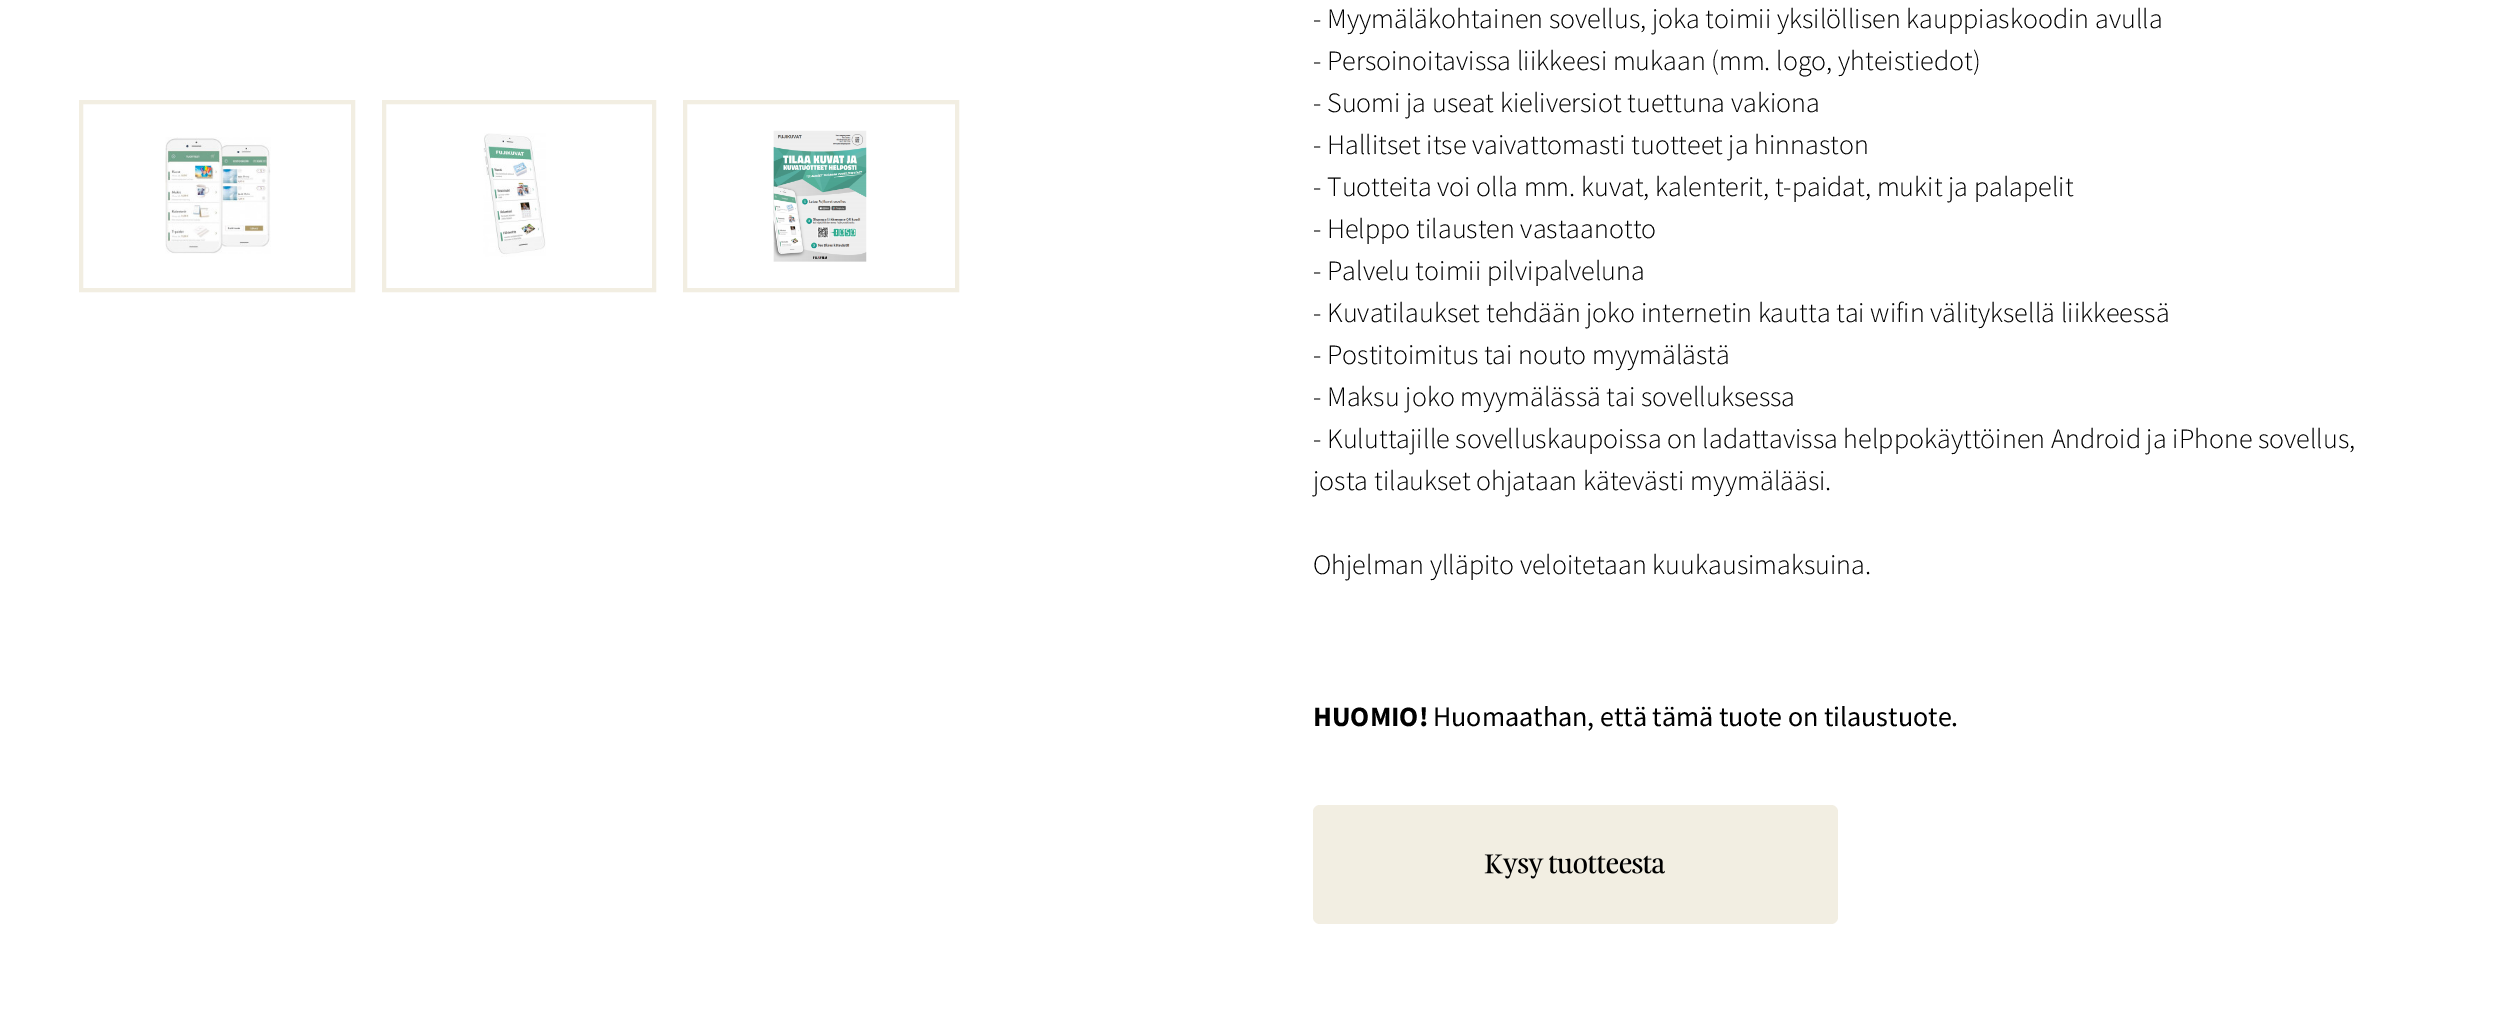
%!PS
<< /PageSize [2519 1020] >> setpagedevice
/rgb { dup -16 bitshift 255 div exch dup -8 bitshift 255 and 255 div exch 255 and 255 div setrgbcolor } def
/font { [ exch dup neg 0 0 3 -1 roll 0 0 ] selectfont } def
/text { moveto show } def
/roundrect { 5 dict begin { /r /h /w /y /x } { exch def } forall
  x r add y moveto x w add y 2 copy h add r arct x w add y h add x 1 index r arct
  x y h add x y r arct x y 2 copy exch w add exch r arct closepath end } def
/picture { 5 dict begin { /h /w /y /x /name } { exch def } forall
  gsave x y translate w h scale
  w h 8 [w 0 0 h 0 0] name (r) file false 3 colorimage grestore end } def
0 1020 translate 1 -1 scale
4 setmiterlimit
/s1 { /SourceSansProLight-Light 28 font 16#000000 rgb } def
/s2 { /SourceSansPro-Bold 28 font 16#000000 rgb } def
/s3 { /SourceSansPro-Regular 28 font 16#000000 rgb } def
16#FFFFFF rgb
0 0 2519 1020 rectfill
16#F2EEE2 rgb
4 setlinewidth
81 102 272 188 rectstroke
(pic1.raw) 165 137 106 117 picture
384 102 270 188 rectstroke
(pic2.raw) 483 133 63 124 picture
685 102 272 188 rectstroke
(pic3.raw) 773 130 94 132 picture
s1
(- Myymäläkohtainen sovellus, joka toimii yksilöllisen kauppiaskoodin avulla) 1313 28 text
(- Persoinoitavissa liikkeesi mukaan \(mm. logo, yhteistiedot\)) 1313 70 text
(- Suomi ja useat kieliversiot tuettuna vakiona) 1313 112 text
(- Hallitset itse vaivattomasti tuotteet ja hinnaston) 1313 154 text
(- Tuotteita voi olla mm. kuvat, kalenterit, t-paidat, mukit ja palapelit) 1313 196 text
(- Helppo tilausten vastaanotto) 1313 238 text
(- Palvelu toimii pilvipalveluna) 1313 280 text
(- Kuvatilaukset tehdään joko internetin kautta tai wifin välityksellä liikkeessä) 1313 322 text
(- Postitoimitus tai nouto myymälästä) 1313 364 text
(- Maksu joko myymälässä tai sovelluksessa) 1313 406 text
(- Kuluttajille sovelluskaupoissa on ladattavissa helppokäyttöinen Android ja iPhone sovellus,) 1313 448 text
(josta tilaukset ohjataan kätevästi myymälääsi.) 1313 490 text
(Ohjelman ylläpito veloitetaan kuukausimaksuina.) 1313 574 text
s2
(HUOMIO!) 1313 726 text
s3
(Huomaathan, että tämä tuote on tilaustuote.) 1433 726 text
16#F2EEE2 rgb
1313 805 525 119 7 roundrect fill
(pic4.raw) 1484 854 181 25 picture
showpage
